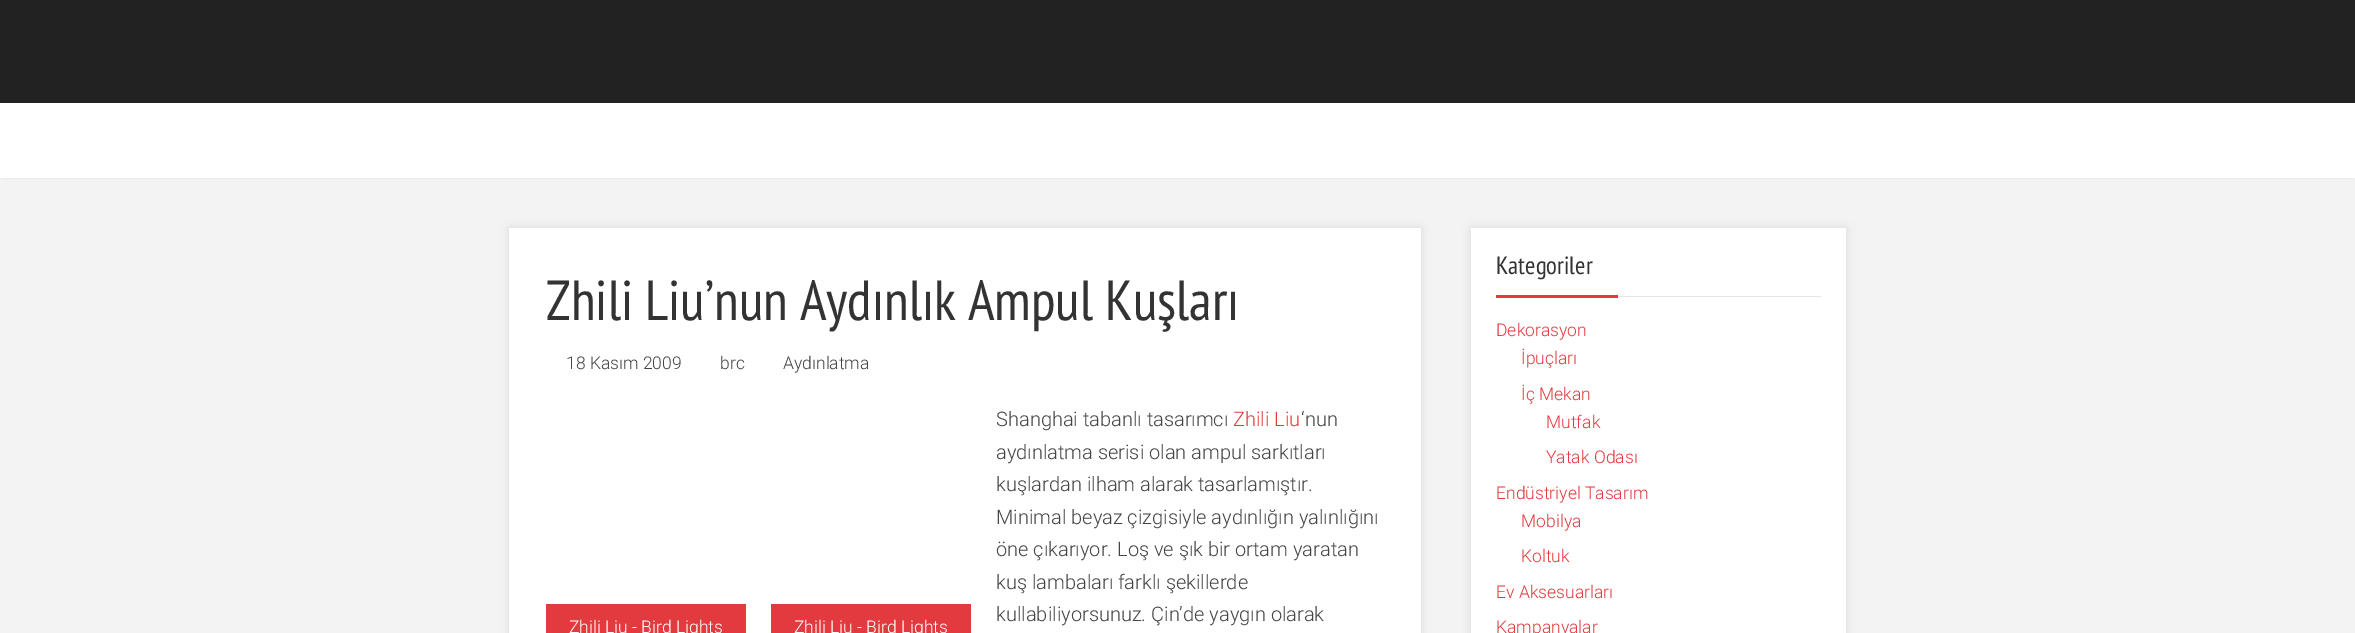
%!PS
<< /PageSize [2355 633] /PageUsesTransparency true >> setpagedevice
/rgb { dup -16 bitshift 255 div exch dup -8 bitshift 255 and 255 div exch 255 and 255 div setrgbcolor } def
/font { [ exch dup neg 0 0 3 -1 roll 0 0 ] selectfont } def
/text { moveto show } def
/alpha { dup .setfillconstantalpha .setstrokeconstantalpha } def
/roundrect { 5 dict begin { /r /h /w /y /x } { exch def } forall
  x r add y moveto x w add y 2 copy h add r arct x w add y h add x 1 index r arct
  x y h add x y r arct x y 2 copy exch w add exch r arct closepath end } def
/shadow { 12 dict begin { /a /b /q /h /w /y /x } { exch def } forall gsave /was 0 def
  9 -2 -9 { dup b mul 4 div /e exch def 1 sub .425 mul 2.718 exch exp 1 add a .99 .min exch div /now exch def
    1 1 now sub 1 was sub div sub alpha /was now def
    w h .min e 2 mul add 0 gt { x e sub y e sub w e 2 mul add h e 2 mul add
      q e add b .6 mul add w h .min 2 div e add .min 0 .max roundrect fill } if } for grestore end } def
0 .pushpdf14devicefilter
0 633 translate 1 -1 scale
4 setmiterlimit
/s1 { /PTSansNarrow-Regular 56.25 font 16#333333 rgb } def
/s2 { /Roboto-Light 17.5 font 16#444444 rgb } def
/s3 { /Roboto-Light 17.5 font 16#FFFFFF rgb } def
/s4 { /Roboto-Light 20 font 16#444444 rgb } def
/s5 { /Roboto-Light 20 font 16#E23A3E rgb } def
/s6 { /PTSansNarrow-Regular 25 font 16#333333 rgb } def
/s7 { /Roboto-Light 17.5 font 16#E23A3E rgb } def
16#F3F3F3 rgb
0 0 2355 633 rectfill
16#000000 rgb
3 5 2350 173 0 1 0.1 shadow
16#222222 rgb
0 0 2355 103 rectfill
16#FFFFFF rgb
0 103 2355 75 rectfill
16#000000 rgb
509 228 912 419 0 4.5 0.1 shadow
16#FFFFFF rgb
509 228 912 405 rectfill
s1
(Zhili Liu’nun Aydınlık Ampul Kuşları) 546 320 text
s2
(18 Kasım 2009) 566 369 text
(brc) 720 369 text
(Aydınlatma) 783 369 text
16#E23A3E rgb
546 604 200 29 rectfill
s3
(Zhili Liu - Bird Lights) 569 633 text
16#E23A3E rgb
771 604 200 29 rectfill
s3
(Zhili Liu - Bird Lights) 794 633 text
s4
(Shanghai tabanlı tasarımcı) 996 426 text
s5
(Zhili Liu) 1233 426 text
s4
(‘nun) 1301 426 text
(aydınlatma serisi olan ampul sarkıtları) 996 459 text
(kuşlardan ilham alarak tasarlamıştır.) 996 491 text
(Minimal beyaz çizgisiyle aydınlığın yalınlığını) 996 524 text
(öne çıkarıyor. Loş ve şık bir ortam yaratan) 996 556 text
(kuş lambaları farklı şekillerde) 996 589 text
(kullabiliyorsunuz. Çin’de yaygın olarak) 996 621 text
16#000000 rgb
1471 228 375 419 0 4.5 0.1 shadow
16#FFFFFF rgb
1471 228 375 405 rectfill
16#E6E6E6 rgb
1618 296 203 1 rectfill
16#E23A3E rgb
1496 295 122 3 rectfill
s6
(Kategoriler) 1496 274 text
s7
(Dekorasyon) 1496 336 text
(İpuçları) 1521 364 text
(İç Mekan) 1521 400 text
(Mutfak) 1546 428 text
(Yatak Odası) 1546 463 text
(Endüstriyel Tasarım) 1496 499 text
(Mobilya) 1521 527 text
(Koltuk) 1521 562 text
(Ev Aksesuarları) 1496 598 text
(Kampanyalar) 1496 633 text
.poppdf14devicefilter showpage
